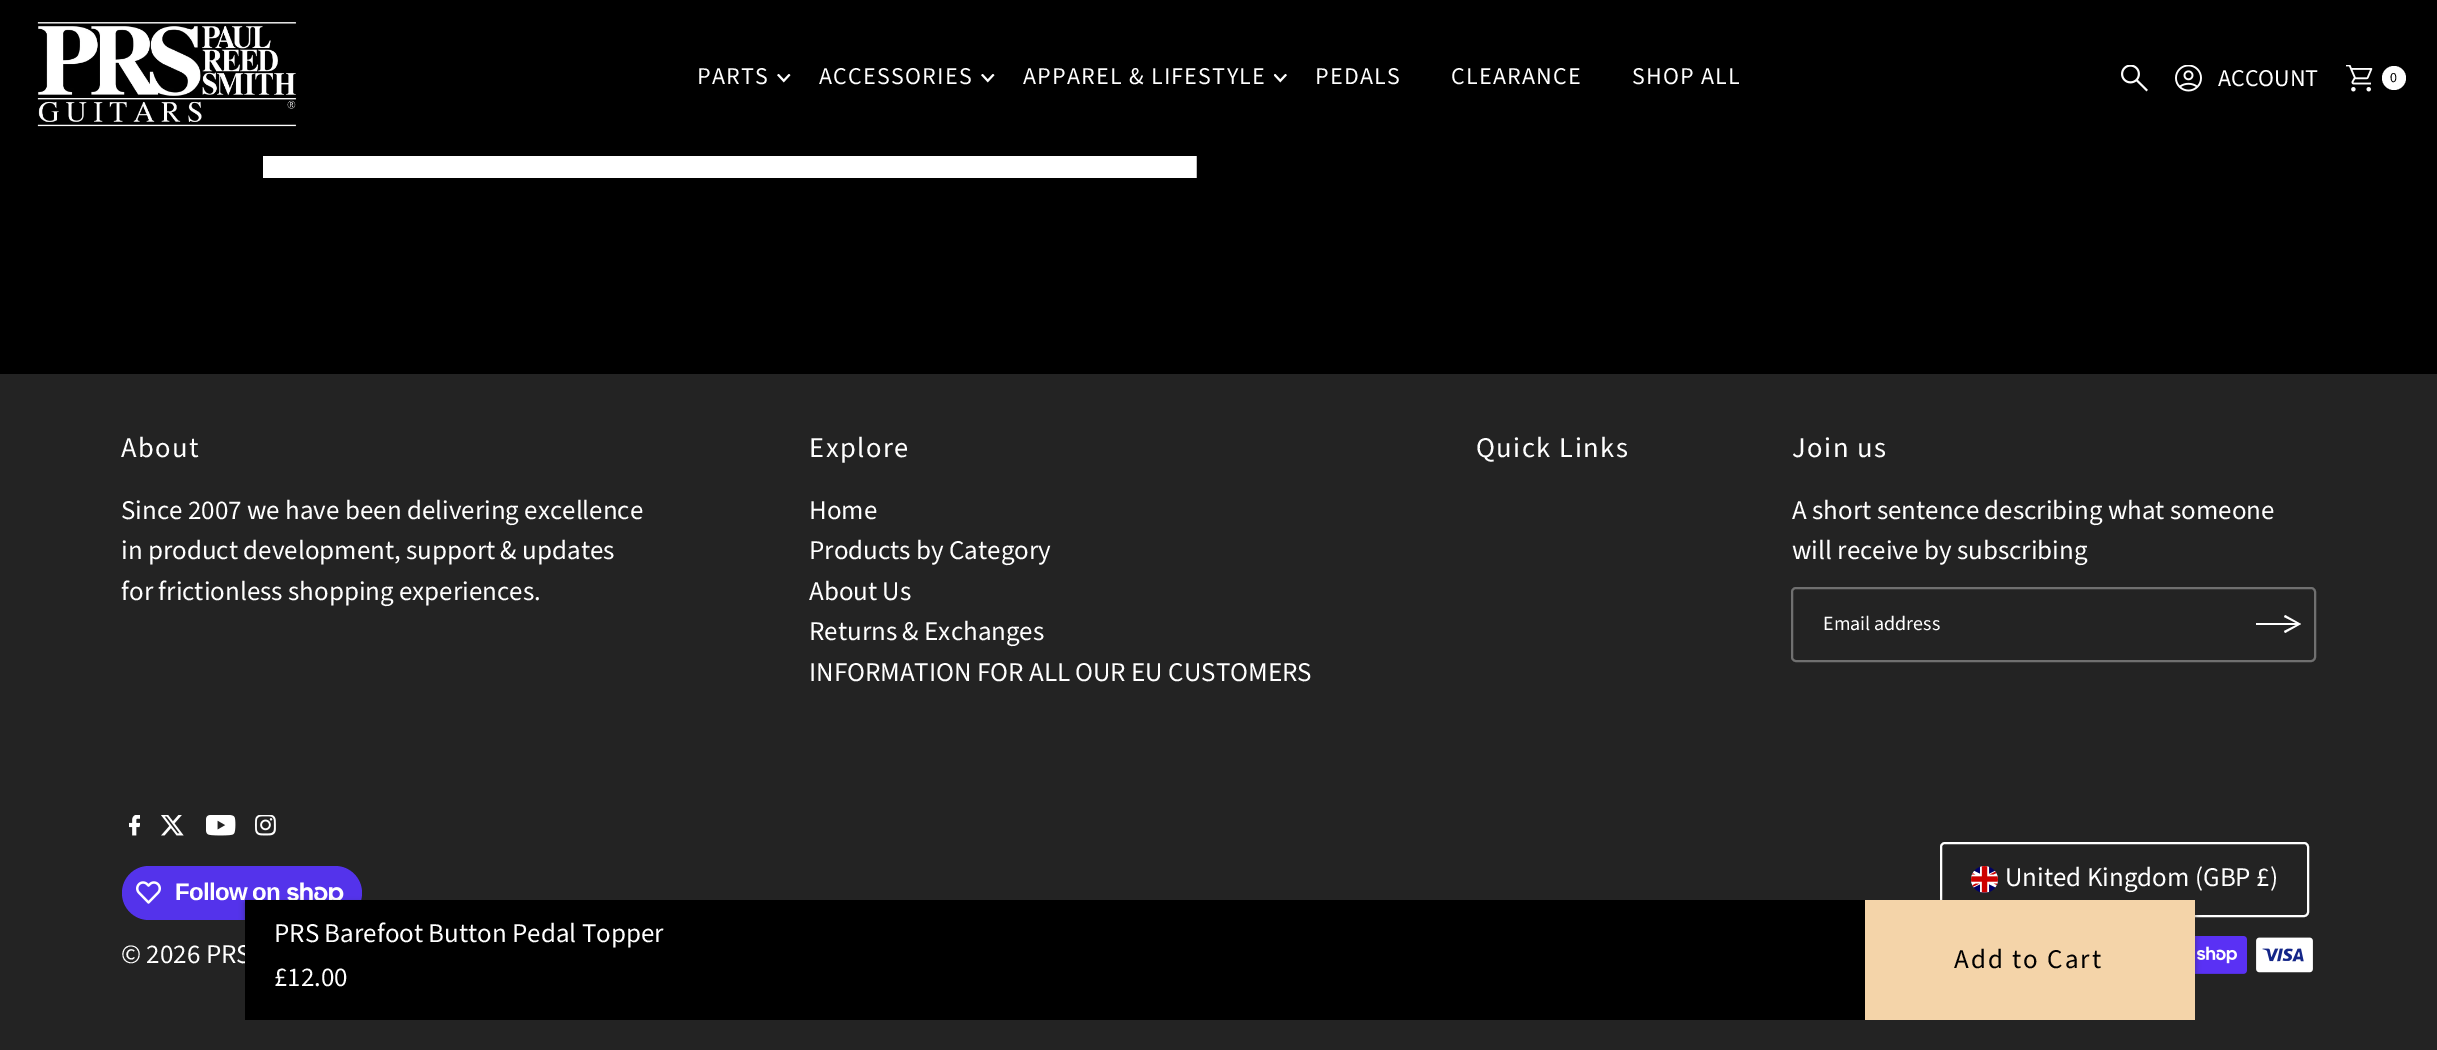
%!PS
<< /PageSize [2437 1050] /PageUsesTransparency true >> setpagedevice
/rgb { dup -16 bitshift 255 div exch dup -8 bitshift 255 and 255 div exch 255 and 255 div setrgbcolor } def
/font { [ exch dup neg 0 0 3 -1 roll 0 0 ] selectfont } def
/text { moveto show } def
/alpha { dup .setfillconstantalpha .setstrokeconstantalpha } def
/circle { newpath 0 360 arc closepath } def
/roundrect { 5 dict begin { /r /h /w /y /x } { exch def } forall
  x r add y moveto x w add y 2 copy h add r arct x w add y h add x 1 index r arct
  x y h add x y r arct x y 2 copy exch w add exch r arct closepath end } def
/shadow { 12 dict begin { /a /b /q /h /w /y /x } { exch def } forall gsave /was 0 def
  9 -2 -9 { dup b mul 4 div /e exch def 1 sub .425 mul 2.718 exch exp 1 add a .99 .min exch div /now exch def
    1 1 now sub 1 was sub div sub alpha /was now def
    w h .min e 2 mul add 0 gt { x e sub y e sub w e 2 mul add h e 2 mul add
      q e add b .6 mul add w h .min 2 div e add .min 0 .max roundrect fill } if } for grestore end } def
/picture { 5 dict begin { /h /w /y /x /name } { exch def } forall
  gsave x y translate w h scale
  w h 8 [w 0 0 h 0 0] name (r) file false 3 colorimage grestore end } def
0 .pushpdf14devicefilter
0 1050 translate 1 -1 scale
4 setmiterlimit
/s1 { /SourceSansPro-Regular 24 font 16#FFFFFF rgb } def
/s2 { /SourceSansPro-Regular 14 font 16#000000 rgb } def
/s3 { /SourceSansPro-Regular 27 font 16#FFFFFF rgb } def
/s4 { /SourceSansPro-Regular 20 font 16#FFFFFF rgb } def
16#000000 rgb
0 0 2437 1050 rectfill
(pic1.raw) 37 22 260 105 picture
/SourceSansPro-Regular 24 font
16#FFFFFF rgb
697 84 moveto 1.25 0 (PARTS) ashow
(pic2.raw) 777 74 14 9 picture
819 84 moveto 1.25 0 (ACCESSORIES) ashow
(pic2.raw) 981 74 14 9 picture
1023 84 moveto 1.25 0 (APPAREL & LIFESTYLE) ashow
(pic3.raw) 1274 74 13 9 picture
1315 84 moveto 1.25 0 (PEDALS) ashow
1451 84 moveto 1.25 0 (CLEARANCE) ashow
1632 84 moveto 1.25 0 (SHOP ALL) ashow
(pic4.raw) 2121 65 27 27 picture
(pic5.raw) 2175 65 27 27 picture
(ACCOUNT) 2218 86 text
(pic6.raw) 2346 65 27 27 picture
2394 78 12 circle fill
s2
(0) 2390 82 text
(pic7.raw) 263 156 934 22 picture
16#232323 rgb
0 374 2437 676 rectfill
16#5433EB rgb
122 866 240 54 27 roundrect fill
(pic13.raw) 287 882 57 18 picture
16#FFFFFF rgb
2 setlinewidth
1941 843 367 73 4 roundrect stroke
(pic15.raw) 2195 936 52 38 picture
16#222222 rgb
245 903 1950 120 0 3 0.5 shadow
/LiberationSans-Bold 24 font
16#FFFFFF rgb
175 900 moveto -0.75 0 (Follow on) ashow
s3
(© 2026 PRS) 121 963 text
16#000000 rgb
245 900 1620 120 rectfill
s3
(PRS Barefoot Button Pedal Topper) 274 942 text
(£12.00) 274 986 text
16#F4D4A9 rgb
1865 900 330 120 rectfill
16#000000 rgb
1954 968 moveto 2 0 (Add to Cart) ashow
/SourceSansPro-Regular 28.5 font
16#FFFFFF rgb
121 457 moveto 1.5 0 (About) ashow
s3
(Since 2007 we have been delivering excellence) 121 519 text
(in product development, support & updates) 121 559 text
(for frictionless shopping experiences.) 121 600 text
/SourceSansPro-Regular 28.5 font
809 457 moveto 1.5 0 (Explore) ashow
s3
(Home) 809 519 text
(Products by Category) 809 559 text
(About Us) 809 600 text
(Returns & Exchanges) 809 640 text
(INFORMATION FOR ALL OUR EU CUSTOMERS) 809 681 text
/SourceSansPro-Regular 28.5 font
1476 457 moveto 1.5 0 (Quick Links) ashow
1792 457 moveto 1.5 0 (Join us) ashow
s3
(A short sentence describing what someone) 1792 519 text
(will receive by subscribing) 1792 559 text
16#707070 rgb
1792 588 523 73 4 roundrect stroke
s4
(Email address) 1823 630 text
2285 615 moveto 2301 624 lineto 2285 633 lineto 2284 631 lineto 2296 625 lineto 2256 625 lineto 2256 623 lineto 2296 623 lineto 2284 617 lineto closepath fill
(pic8.raw) 129 815 11 21 picture
(pic9.raw) 161 815 23 21 picture
(pic10.raw) 206 815 30 21 picture
(pic11.raw) 255 815 21 21 picture
(pic12.raw) 136 881 25 23 picture
(pic14.raw) 1971 866 27 27 picture
s3
(United Kingdom \(GBP £\)) 2005 886 text
(pic16.raw) 2256 937 57 36 picture
.poppdf14devicefilter showpage
